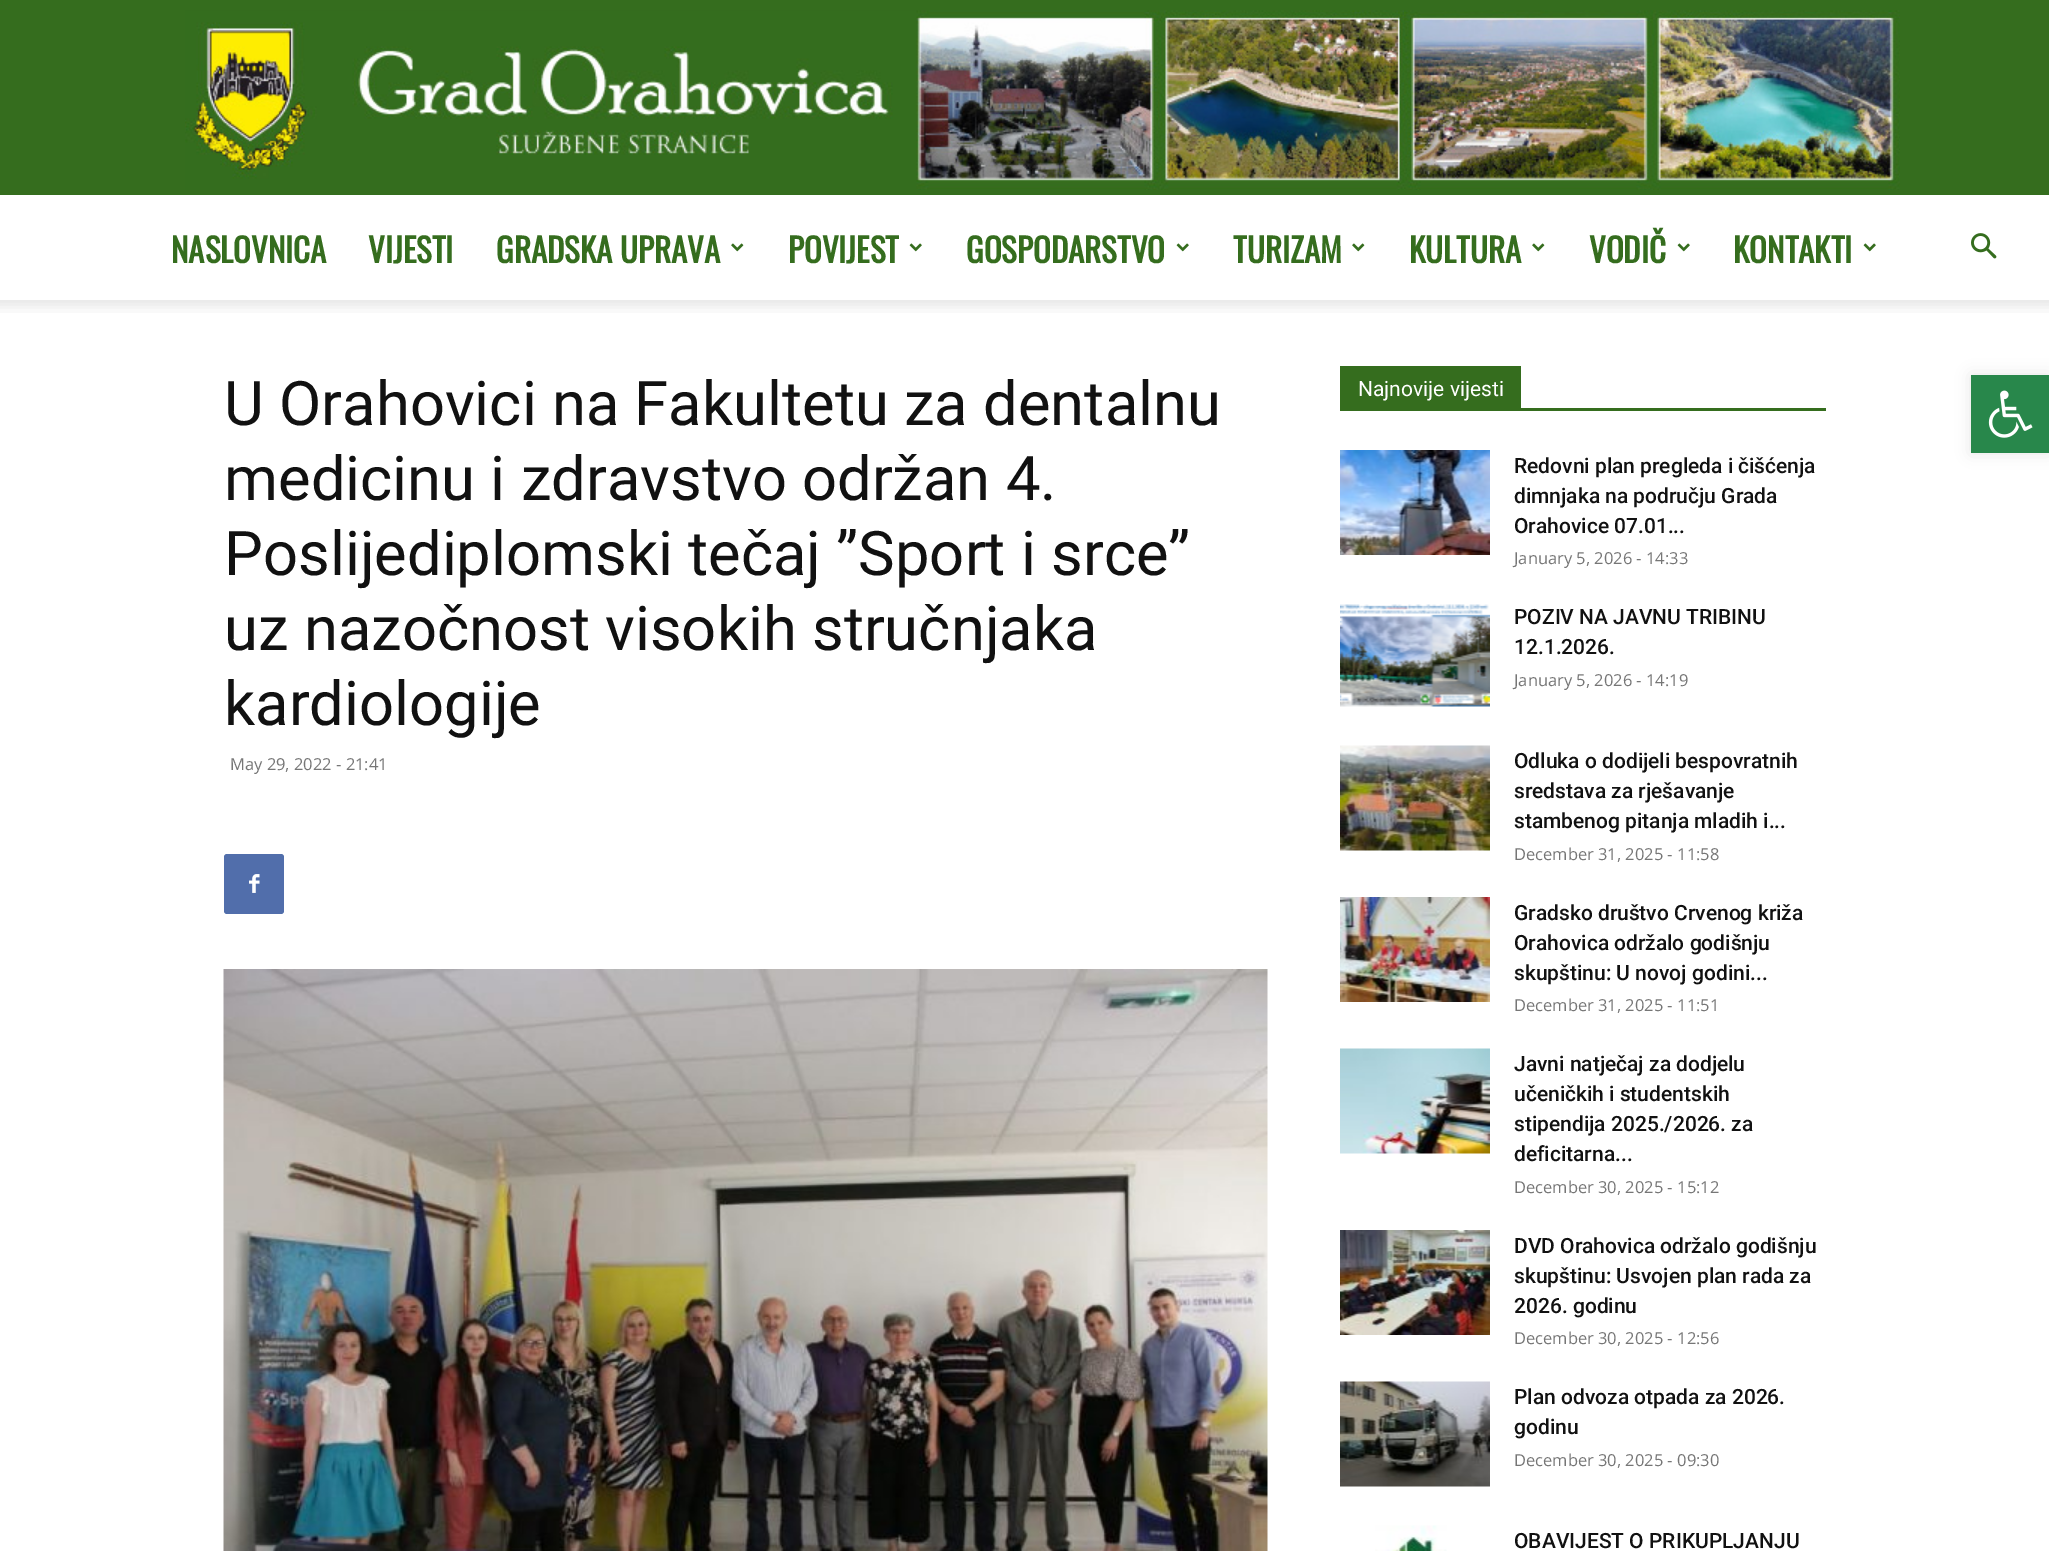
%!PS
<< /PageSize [2049 1551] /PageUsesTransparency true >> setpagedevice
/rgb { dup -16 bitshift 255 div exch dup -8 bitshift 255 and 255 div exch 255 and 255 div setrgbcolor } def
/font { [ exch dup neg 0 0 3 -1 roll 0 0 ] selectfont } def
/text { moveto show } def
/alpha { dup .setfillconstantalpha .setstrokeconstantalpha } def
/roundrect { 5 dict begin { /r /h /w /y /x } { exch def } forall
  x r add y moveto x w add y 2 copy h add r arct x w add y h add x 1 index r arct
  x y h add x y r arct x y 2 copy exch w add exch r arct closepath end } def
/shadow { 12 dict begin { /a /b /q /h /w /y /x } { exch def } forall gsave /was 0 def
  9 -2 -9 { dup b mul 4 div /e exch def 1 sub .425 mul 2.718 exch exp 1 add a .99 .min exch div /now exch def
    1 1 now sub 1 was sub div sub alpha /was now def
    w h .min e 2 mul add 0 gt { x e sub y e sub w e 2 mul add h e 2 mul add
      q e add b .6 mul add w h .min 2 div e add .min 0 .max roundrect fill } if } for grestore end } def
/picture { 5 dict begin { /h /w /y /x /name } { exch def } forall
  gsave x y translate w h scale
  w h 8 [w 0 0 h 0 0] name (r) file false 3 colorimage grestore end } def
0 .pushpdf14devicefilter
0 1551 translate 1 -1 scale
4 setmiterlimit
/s1 { /Oswald-Bold 33 font 16#356D1E rgb } def
/s2 { /Roboto-Regular 61.5 font 16#111111 rgb } def
/s3 { /OpenSans-Regular 16.5 font 16#767676 rgb } def
/s4 { /Roboto-Regular 21 font 16#FFFFFF rgb } def
/s5 { /Roboto-Medium 21 font 16#111111 rgb } def
16#FFFFFF rgb
0 0 2049 1551 rectfill
16#356D1E rgb
0 0 2049 195 rectfill
(pic1.raw) 185 10 1715 180 picture
s1
(NASLOVNICA) 171 263 text
(VIJESTI) 368 263 text
(GRADSKA UPRAVA) 496 263 text
(pic2.raw) 731 243 13 9 picture
(POVIJEST) 788 263 text
(pic3.raw) 909 243 13 9 picture
(GOSPODARSTVO) 966 263 text
(pic3.raw) 1176 243 13 9 picture
(TURIZAM) 1233 263 text
(pic2.raw) 1352 243 13 9 picture
(KULTURA) 1409 263 text
(pic2.raw) 1532 243 13 9 picture
(VODIČ) 1589 263 text
(pic3.raw) 1677 243 13 9 picture
(KONTAKTI) 1733 263 text
(pic3.raw) 1863 243 13 9 picture
(pic4.raw) 1971 233 26 26 picture
(pic5.raw) 0 300 2049 13 picture
s2
(U Orahovici na Fakultetu za dentalnu) 224 425 text
(medicinu i zdravstvo održan 4.) 224 500 text
(Poslijediplomski tečaj ”Sport i srce”) 224 575 text
(uz nazočnost visokih stručnjaka) 224 650 text
(kardiologije) 224 725 text
s3
(May 29, 2022 - 21:41) 230 770 text
16#516EAB rgb
224 854 60 60 3 roundrect fill
(pic6.raw) 249 874 11 19 picture
(pic7.raw) 223 969 1045 582 picture
16#356D1E rgb
1340 408 486 3 rectfill
1340 366 181 42 rectfill
s4
(Najnovije vijesti) 1358 396 text
(pic8.raw) 1340 450 150 105 picture
s5
(Redovni plan pregleda i čišćenja) 1514 473 text
(dimnjaka na području Grada) 1514 503 text
(Orahovice 07.01...) 1514 533 text
s3
(January 5, 2026 - 14:33) 1514 564 text
(pic9.raw) 1340 604 150 103 picture
s5
(POZIV NA JAVNU TRIBINU) 1514 624 text
(12.1.2026.) 1514 654 text
s3
(January 5, 2026 - 14:19) 1514 686 text
(pic10.raw) 1340 745 150 106 picture
s5
(Odluka o dodijeli bespovratnih) 1514 768 text
(sredstava za rješavanje) 1514 798 text
(stambenog pitanja mladih i...) 1514 828 text
s3
(December 31, 2025 - 11:58) 1514 860 text
(pic11.raw) 1340 897 150 105 picture
s5
(Gradsko društvo Crvenog križa) 1514 920 text
(Orahovica održalo godišnju) 1514 950 text
(skupštinu: U novoj godini...) 1514 980 text
s3
(December 31, 2025 - 11:51) 1514 1011 text
(pic12.raw) 1340 1048 150 106 picture
s5
(Javni natječaj za dodjelu) 1514 1071 text
(učeničkih i studentskih) 1514 1101 text
(stipendija 2025./2026. za) 1514 1131 text
(deficitarna...) 1514 1161 text
s3
(December 30, 2025 - 15:12) 1514 1193 text
(pic13.raw) 1340 1230 150 105 picture
s5
(DVD Orahovica održalo godišnju) 1514 1253 text
(skupštinu: Usvojen plan rada za) 1514 1283 text
(2026. godinu) 1514 1313 text
s3
(December 30, 2025 - 12:56) 1514 1344 text
(pic14.raw) 1340 1381 150 106 picture
s5
(Plan odvoza otpada za 2026.) 1514 1404 text
(godinu) 1514 1434 text
s3
(December 30, 2025 - 09:30) 1514 1466 text
(pic15.raw) 1375 1525 72 26 picture
s5
(OBAVIJEST O PRIKUPLJANJU) 1514 1548 text
16#000000 rgb
1971 375 78 78 0 7.5 0.1 shadow
16#28874B rgb
1971 375 78 78 rectfill
(pic16.raw) 1988 390 45 48 picture
.poppdf14devicefilter showpage
